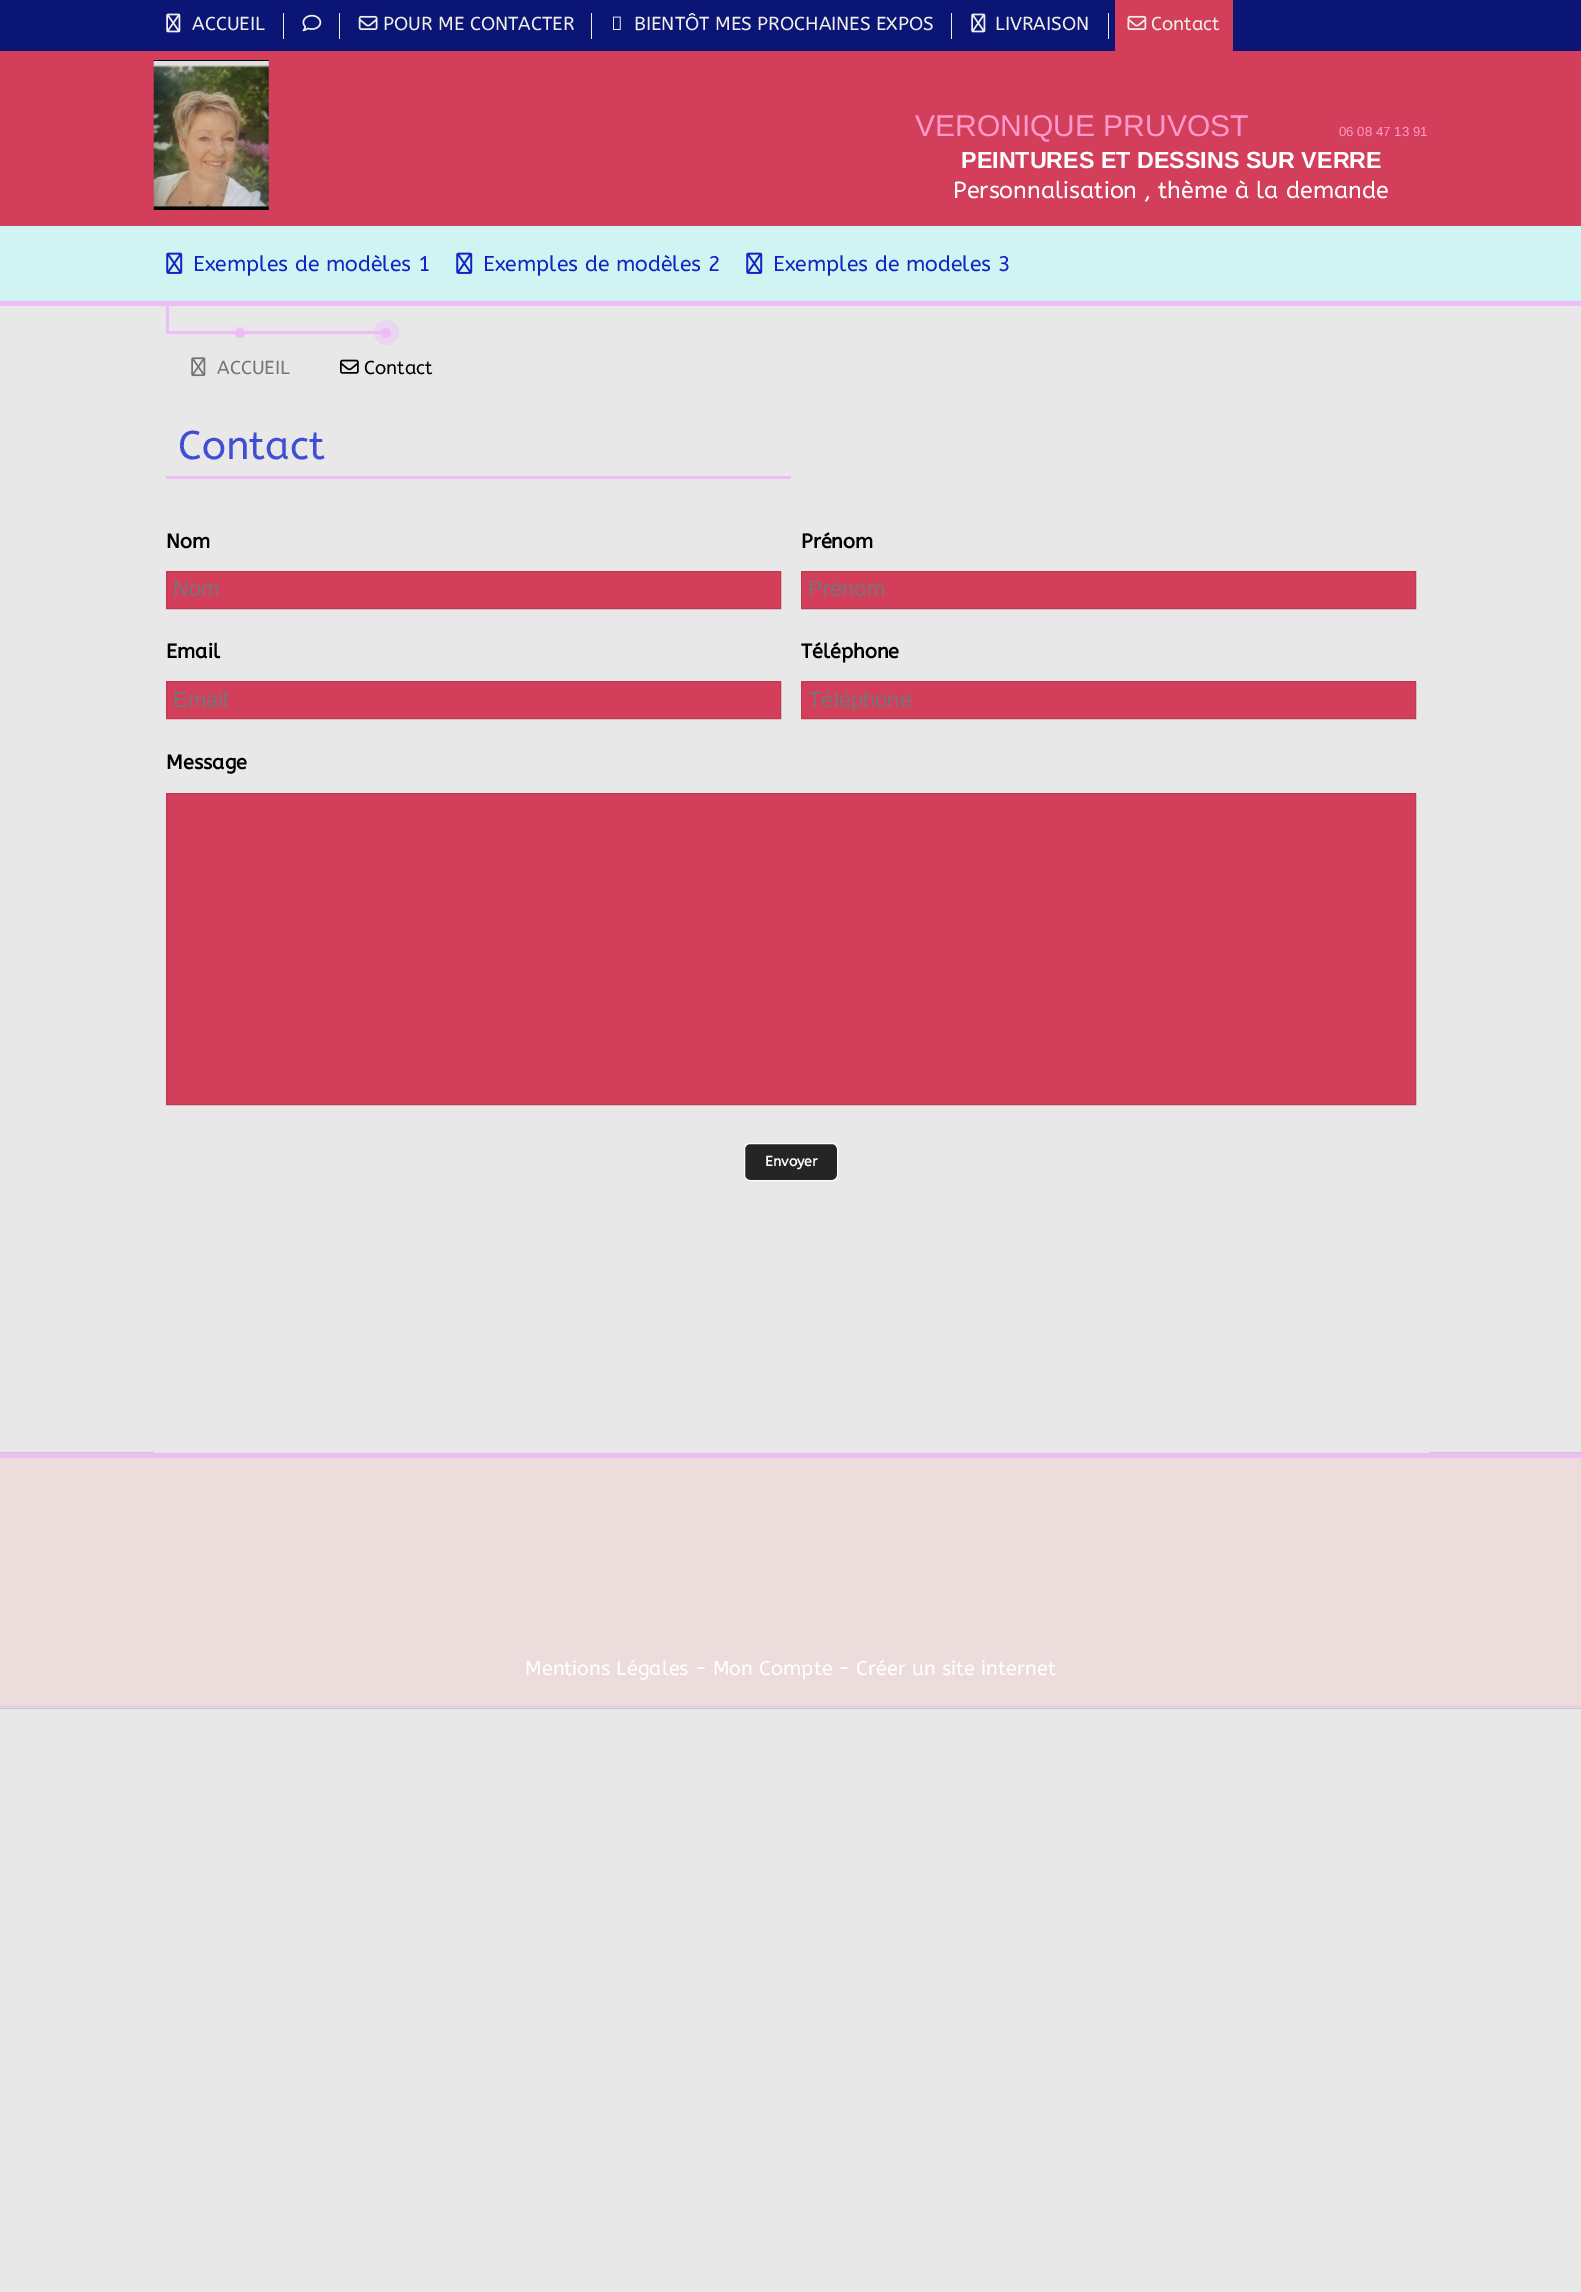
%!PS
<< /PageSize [1581 2292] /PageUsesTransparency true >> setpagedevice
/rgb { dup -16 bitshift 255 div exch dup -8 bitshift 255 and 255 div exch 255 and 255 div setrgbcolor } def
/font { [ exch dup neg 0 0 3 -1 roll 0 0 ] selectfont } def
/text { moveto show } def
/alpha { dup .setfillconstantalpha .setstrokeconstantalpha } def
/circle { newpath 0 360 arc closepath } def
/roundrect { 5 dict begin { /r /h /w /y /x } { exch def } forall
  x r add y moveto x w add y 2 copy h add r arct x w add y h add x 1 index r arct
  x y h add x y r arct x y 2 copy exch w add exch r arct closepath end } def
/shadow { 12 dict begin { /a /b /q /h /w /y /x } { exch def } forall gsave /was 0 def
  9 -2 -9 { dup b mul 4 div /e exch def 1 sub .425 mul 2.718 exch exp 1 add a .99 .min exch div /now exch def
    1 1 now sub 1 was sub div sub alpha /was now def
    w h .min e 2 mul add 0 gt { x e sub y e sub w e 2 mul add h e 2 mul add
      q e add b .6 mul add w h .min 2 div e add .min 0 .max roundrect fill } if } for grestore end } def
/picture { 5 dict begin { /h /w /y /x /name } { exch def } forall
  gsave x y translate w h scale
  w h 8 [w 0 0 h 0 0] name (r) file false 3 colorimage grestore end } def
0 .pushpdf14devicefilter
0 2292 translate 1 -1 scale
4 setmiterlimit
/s1 { /ABeeZee-Regular 18.75 font 16#F0F0EA rgb } def
/s2 { /LiberationSans-Regular 30 font 16#FF99CC rgb } def
/s3 { /LiberationSans-Regular 13.25 font 16#FF99CC rgb } def
/s4 { /LiberationSans-Bold 23.3 font 16#FFFFFF rgb } def
/s5 { /ABeeZee-Regular 23.3 font 16#FFFFFF rgb } def
/s6 { /ABeeZee-Regular 21.25 font 16#1324C4 rgb } def
/s7 { /ABeeZee-Regular 18.75 font 16#757575 rgb } def
/s8 { /ABeeZee-Regular 18.75 font 16#000000 rgb } def
/s9 { /ABeeZee-Regular 40 font 16#3F4ED3 rgb } def
/s10 { /ABeeZee-Bold 20 font 16#000000 rgb } def
/s11 { /LiberationSans-Regular 22 font 16#757575 rgb } def
/s12 { /ABeeZee-Bold 14 font 16#FFFFFF rgb } def
/s13 { /ABeeZee-Regular 20 font 16#FFFFFF rgb } def
16#E8E8E8 rgb
0 0 1581 2292 rectfill
16#0B1576 rgb
0 0 1581 51 rectfill
(pic1.raw) 166 13 15 20 picture
s1
(ACCUEIL) 192 30 text
283 13 1 26 rectfill
(pic2.raw) 302 14 20 18 picture
339 13 1 26 rectfill
(pic3.raw) 358 15 20 15 picture
(POUR ME CONTACTER) 383 30 text
591 13 1 26 rectfill
(pic4.raw) 613 16 8 14 picture
(BIENTÔT MES PROCHAINES EXPOS) 634 30 text
951 13 1 26 rectfill
(pic1.raw) 971 13 15 20 picture
(LIVRAISON) 995 30 text
1108 13 1 26 rectfill
16#D33F5A rgb
1115 0 118 51 rectfill
(pic5.raw) 1127 15 20 15 picture
s1
(Contact) 1151 30 text
16#D33F5A rgb
0 51 1581 175 rectfill
(pic6.raw) 153 60 116 150 picture
s2
(VERONIQUE PRUVOST) 915 136 text
s3
(06 08 47 13 91) 1339 136 text
s4
(PEINTURES ET DESSINS SUR VERRE) 961 168 text
s5
(Personnalisation , thème à la demande) 953 198 text
16#CFF4F1 rgb
0 226 1581 75 rectfill
16#EEBCF7 rgb
0 301 1581 5 rectfill
(pic7.raw) 166 252 17 22 picture
s6
(Exemples de modèles 1) 193 271 text
(pic7.raw) 456 252 17 22 picture
(Exemples de modèles 2) 483 271 text
(pic7.raw) 746 252 17 22 picture
(Exemples de modeles 3) 773 271 text
16#000000 rgb
0 1453 1581 255 0 0.5 0.5 shadow
16#E8E8E8 rgb
154 1452 1275 1 rectfill
16#EEBCF7 rgb
166 306 3 25 rectfill
166 331 220 3 rectfill
0.1 alpha
5 setlinewidth
240 333 7.5 circle stroke
1 alpha
240 333 5 circle fill
(pic8.raw) 191 357 15 20 picture
s7
(ACCUEIL) 217 374 text
0.4 alpha
16#EEBCF7 rgb
8 setlinewidth
386.5 332.5 8.5 circle stroke
1 alpha
386 333 5 circle fill
(pic9.raw) 340 359 19 15 picture
s8
(Contact) 364 374 text
16#EEBCF7 rgb
166 476 625 3 rectfill
s9
(Contact) 178 459 text
s10
(Nom) 166 548 text
16#D33F5A rgb
166.5 571.5 moveto 780.5 571.5 lineto 780.5 608.5 lineto 166.5 608.5 lineto closepath gsave fill grestore
16#BE3951 rgb
1 setlinewidth
stroke
s11
(Nom) 173 596 text
s10
(Prénom) 801 548 text
16#D33F5A rgb
801.5 571.5 moveto 1415.5 571.5 lineto 1415.5 608.5 lineto 801.5 608.5 lineto closepath gsave fill grestore
16#BE3951 rgb
stroke
s11
(Prénom) 808 596 text
s10
(Email) 166 658 text
16#D33F5A rgb
166.5 681.5 moveto 780.5 681.5 lineto 780.5 718.5 lineto 166.5 718.5 lineto closepath gsave fill grestore
16#BE3951 rgb
stroke
s11
(Email) 173 707 text
s10
(Téléphone) 801 658 text
16#D33F5A rgb
801.5 681.5 moveto 1415.5 681.5 lineto 1415.5 718.5 lineto 801.5 718.5 lineto closepath gsave fill grestore
16#BE3951 rgb
stroke
s11
(Téléphone) 808 707 text
s10
(Message) 166 769 text
16#D33F5A rgb
166.5 793.5 moveto 1415.5 793.5 lineto 1415.5 1104.5 lineto 166.5 1104.5 lineto closepath gsave fill grestore
16#BE3951 rgb
stroke
16#262525 rgb
744.5 1143.5 93 37 5.5 roundrect gsave fill grestore
16#FFFFFF rgb
stroke
s12
(Envoyer) 765 1166 text
16#ECDCDC rgb
0 1458 1581 250 rectfill
16#EEBCF7 rgb
0 1453 1581 5 rectfill
0 1706 1581 1 rectfill
s13
(Mentions Légales - Mon Compte - Créer un site internet) 525 1675 text
.poppdf14devicefilter showpage
